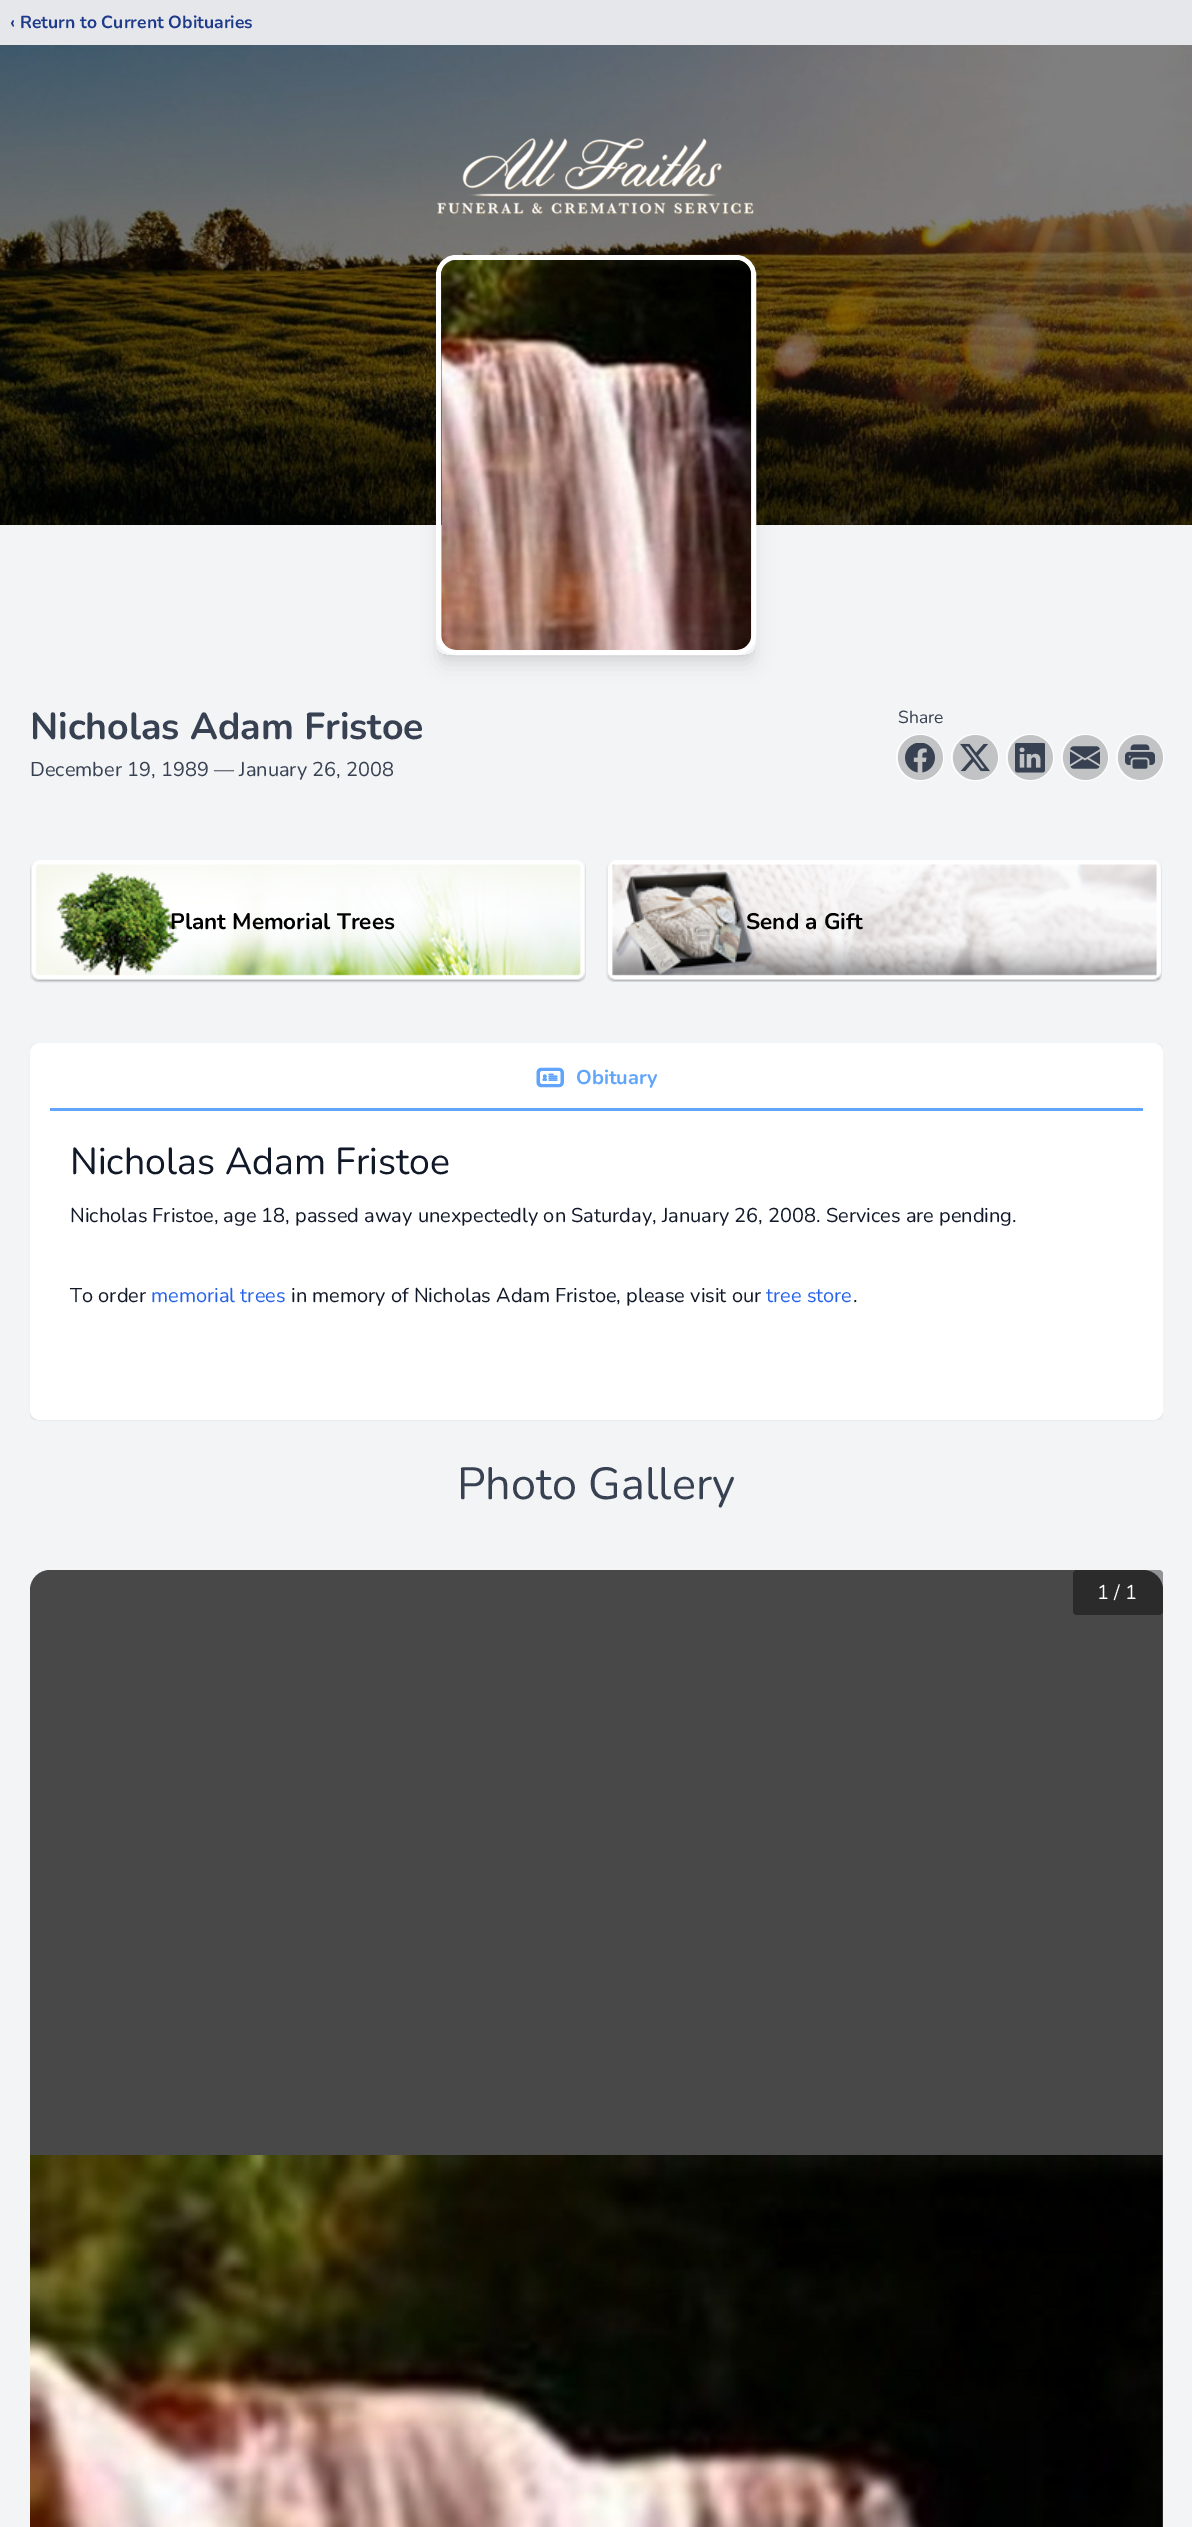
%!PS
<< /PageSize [1192 2527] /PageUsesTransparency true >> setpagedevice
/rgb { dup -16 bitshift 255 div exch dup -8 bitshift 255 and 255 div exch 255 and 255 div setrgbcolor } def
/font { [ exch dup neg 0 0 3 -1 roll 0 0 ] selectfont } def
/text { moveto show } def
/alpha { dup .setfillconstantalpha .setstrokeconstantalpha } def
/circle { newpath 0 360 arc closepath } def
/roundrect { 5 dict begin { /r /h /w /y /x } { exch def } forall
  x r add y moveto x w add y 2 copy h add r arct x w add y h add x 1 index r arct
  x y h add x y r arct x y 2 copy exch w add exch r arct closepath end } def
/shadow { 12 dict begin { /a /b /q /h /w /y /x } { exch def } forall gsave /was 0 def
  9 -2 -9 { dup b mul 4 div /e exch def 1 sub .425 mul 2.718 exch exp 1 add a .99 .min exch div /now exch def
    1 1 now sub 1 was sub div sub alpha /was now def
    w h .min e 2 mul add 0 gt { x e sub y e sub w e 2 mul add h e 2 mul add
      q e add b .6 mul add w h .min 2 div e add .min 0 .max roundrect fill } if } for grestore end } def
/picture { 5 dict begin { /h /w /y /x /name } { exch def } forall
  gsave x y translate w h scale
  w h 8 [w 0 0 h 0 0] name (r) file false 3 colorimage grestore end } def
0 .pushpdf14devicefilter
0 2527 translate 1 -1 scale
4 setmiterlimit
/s1 { /Nunito-Bold 17.5 font 16#1E3A8A rgb } def
/s2 { /Nunito-Bold 37.5 font 16#374151 rgb } def
/s3 { /Nunito-Regular 20 font 16#374151 rgb } def
/s4 { /Nunito-Regular 17.5 font 16#374151 rgb } def
/s5 { /Nunito-Bold 22.5 font 16#000000 rgb } def
/s6 { /Nunito-Bold 20 font 16#60A5FA rgb } def
/s7 { /Nunito-Regular 37.5 font 16#111827 rgb } def
/s8 { /Nunito-Regular 20 font 16#111827 rgb } def
/s9 { /Nunito-Regular 20 font 16#2563EB rgb } def
/s10 { /Nunito-Regular 45 font 16#374151 rgb } def
/s11 { /Nunito-Regular 20 font 16#FFFFFF rgb } def
16#F3F4F6 rgb
0 0 1192 2527 rectfill
16#E5E7EB rgb
0 0 1192 45 rectfill
s1
(‹ Return to Current Obituaries) 10 28 text
(pic1.raw) 0 45 1192 480 picture
(pic2.raw) 437 138 317 77 picture
gsave
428 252 moveto 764 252 lineto 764 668 lineto 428 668 lineto closepath 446 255 moveto 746 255 lineto 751.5 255 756 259.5 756 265 curveto 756 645 lineto 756 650.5 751.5 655 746 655 curveto 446 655 lineto 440.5 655 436 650.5 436 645 curveto 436 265 lineto 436 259.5 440.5 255 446 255 curveto closepath eoclip newpath
16#000000 rgb
441 265 310 390 5 4 0.1 shadow
grestore
gsave
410 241 moveto 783 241 lineto 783 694 lineto 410 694 lineto closepath 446 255 moveto 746 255 lineto 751.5 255 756 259.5 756 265 curveto 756 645 lineto 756 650.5 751.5 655 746 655 curveto 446 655 lineto 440.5 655 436 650.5 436 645 curveto 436 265 lineto 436 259.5 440.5 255 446 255 curveto closepath eoclip newpath
16#000000 rgb
440 271 313 393 6 9.5 0.1 shadow
grestore
16#FFFFFF rgb
5 setlinewidth
438.5 257.5 315 395 17.5 roundrect stroke
(pic3.raw) 441 260 311 390 picture
s2
(Nicholas Adam Fristoe) 30 739 text
s3
(December 19, 1989 — January 26, 2008) 30 776 text
s4
(Share) 898 723 text
16#FFFFFF rgb
1 setlinewidth
896.5 734.5 47 46 23 roundrect stroke
0.2 alpha
16#000000 rgb
920.5 757.5 22.5 circle fill
1 alpha
(pic4.raw) 905 743 30 30 picture
16#FFFFFF rgb
951.5 734.5 47 46 23 roundrect stroke
0.2 alpha
16#000000 rgb
975.5 757.5 22.5 circle fill
1 alpha
(pic5.raw) 960 743 30 29 picture
16#FFFFFF rgb
1006.5 734.5 47 46 23 roundrect stroke
0.2 alpha
16#000000 rgb
1030.5 757.5 22.5 circle fill
1 alpha
(pic6.raw) 1015 743 30 30 picture
16#FFFFFF rgb
1061.5 734.5 47 46 23 roundrect stroke
0.2 alpha
16#000000 rgb
1085.5 757.5 22.5 circle fill
1 alpha
(pic7.raw) 1070 746 30 23 picture
16#FFFFFF rgb
1116.5 734.5 47 46 23 roundrect stroke
0.2 alpha
16#000000 rgb
1140.5 757.5 22.5 circle fill
1 alpha
(pic8.raw) 1125 744 30 25 picture
(pic9.raw) 30 860 556 123 picture
s5
(Plant Memorial Trees) 170 929 text
(pic10.raw) 606 860 556 122 picture
(Send a Gift) 746 929 text
31 1045 1130 375 9 1 0.1 shadow
gsave
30 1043 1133 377 rectclip
30 1044 1133 377 10 2 0.1 shadow
grestore
16#FFFFFF rgb
30 1043 1133 377 10 roundrect fill
16#60A5FA rgb
50 1108 1093 3 rectfill
(pic11.raw) 536 1067 28 21 picture
s6
(Obituary) 576 1084 text
s7
(Nicholas Adam Fristoe) 70 1174 text
s8
(Nicholas Fristoe, age 18, passed away unexpectedly on Saturday, January 26, 2008. Services are pending.) 70 1222 text
(To order) 70 1302 text
s9
(memorial trees) 151 1302 text
s8
(in memory of Nicholas Adam Fristoe, please visit our) 291 1302 text
s9
(tree store) 766 1302 text
s8
(.) 853 1302 text
s10
(Photo Gallery) 457 1499 text
16#484849 rgb
30 1570 1133 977 20 roundrect fill
(pic12.raw) 30 2155 1133 372 picture
0.4 alpha
16#000000 rgb
1073 1570 90 45 4 roundrect fill
1 alpha
s11
(1 / 1) 1097 1599 text
.poppdf14devicefilter showpage
